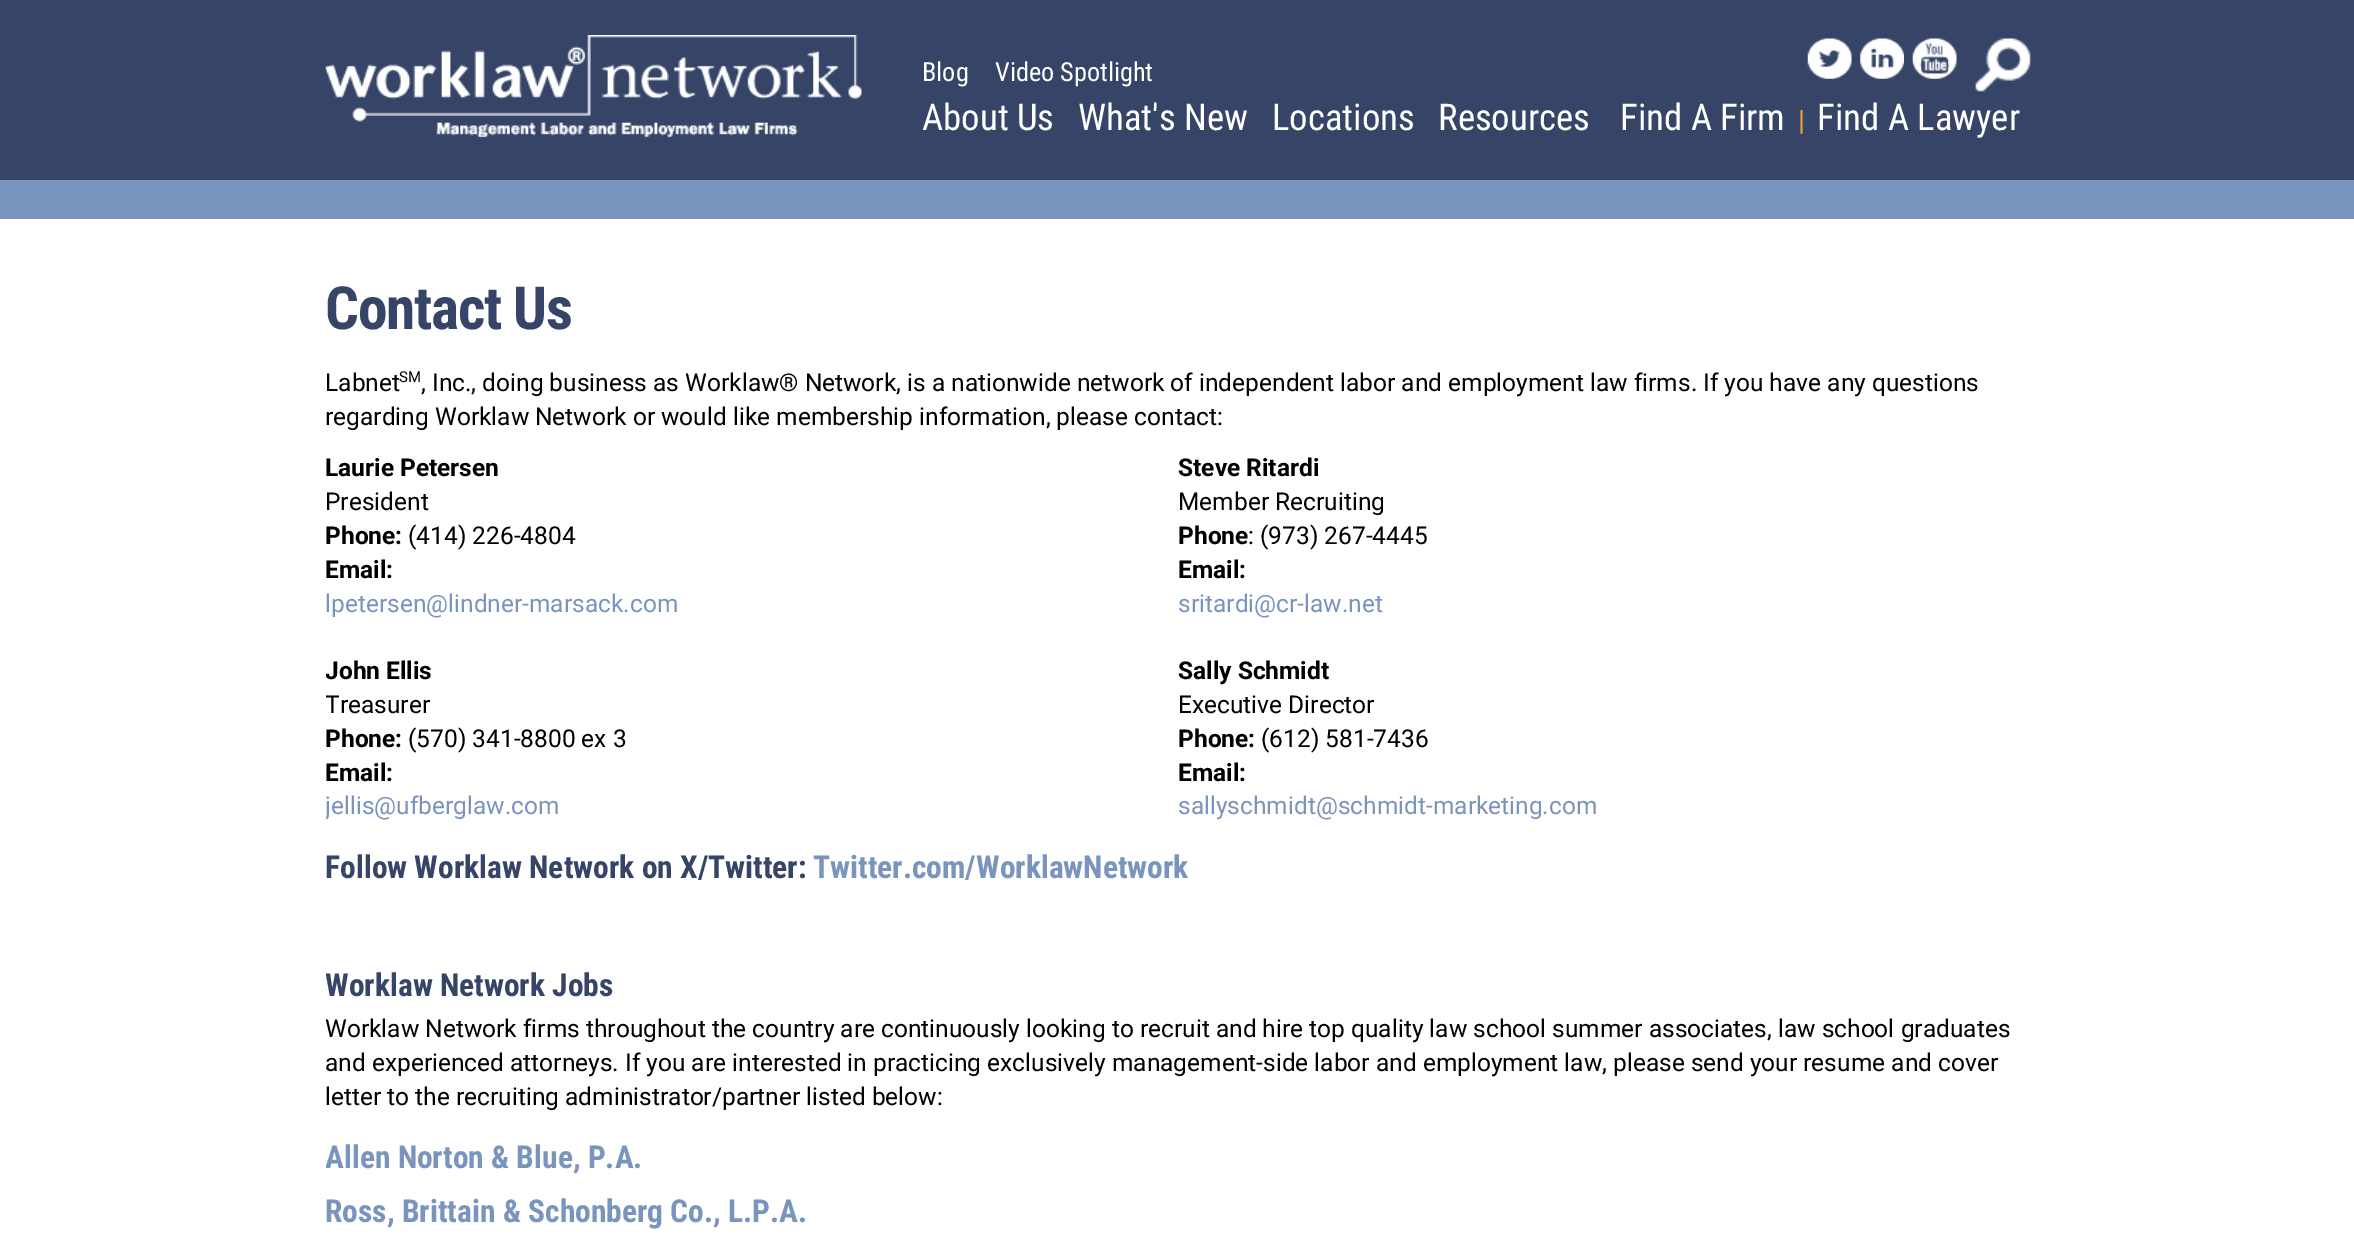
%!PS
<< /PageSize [2354 1245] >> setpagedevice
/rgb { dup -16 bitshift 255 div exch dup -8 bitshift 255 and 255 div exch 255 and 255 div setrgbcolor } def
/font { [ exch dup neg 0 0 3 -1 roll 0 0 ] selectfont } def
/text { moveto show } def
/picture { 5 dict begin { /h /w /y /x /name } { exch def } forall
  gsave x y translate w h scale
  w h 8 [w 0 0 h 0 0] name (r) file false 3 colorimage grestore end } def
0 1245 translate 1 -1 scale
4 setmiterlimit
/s1 { /RobotoCondensed-Regular 26.25 font 16#FFFFFF rgb } def
/s2 { /RobotoCondensed-Regular 36.75 font 16#FFFFFF rgb } def
/s3 { /Roboto-Regular 28 font 16#FA9E30 rgb } def
/s4 { /Roboto-Regular 24.5 font 16#000000 rgb } def
/s5 { /Roboto-Regular 15 font 16#000000 rgb } def
/s6 { /Roboto-Bold 24.5 font 16#000000 rgb } def
/s7 { /Roboto-Regular 24.5 font 16#7994BD rgb } def
/s8 { /RobotoCondensed-Bold 31.5 font 16#354467 rgb } def
/s9 { /RobotoCondensed-Bold 31.5 font 16#7994BD rgb } def
16#354467 rgb
0 0 2354 1245 rectfill
(pic1.raw) 1975 38 56 54 picture
(pic2.raw) 325 35 537 103 picture
s1
(Blog) 922 81 text
(Video Spotlight) 995 81 text
(pic3.raw) 1807 38 45 41 picture
(pic4.raw) 1860 38 44 41 picture
(pic5.raw) 1912 38 45 41 picture
s2
(About Us) 922 130 text
(What's New) 1078 130 text
(Locations) 1272 130 text
(Resources) 1438 130 text
(Find A Firm) 1620 130 text
s3
(|) 1798 130 text
s2
(Find A Lawyer) 1817 130 text
16#7994BD rgb
0 180 2354 39 rectfill
16#FFFFFF rgb
0 219 2354 1026 rectfill
/RobotoCondensed-Bold 59.5 font
16#354467 rgb
325 329 moveto -1.25 0 (Contact Us) ashow
s4
(Labnet) 325 391 text
s5
(SM) 399 382 text
s4
(, Inc., doing business as Worklaw® Network, is a nationwide network of independent labor and employment law firms. If you have any questions) 421 391 text
(regarding Worklaw Network or would like membership information, please contact:) 325 425 text
s6
(Laurie Petersen) 325 476 text
s4
(President) 325 510 text
s6
(Phone:) 325 544 text
s4
(\(414\) 226-4804) 408 544 text
s6
(Email:) 325 578 text
s7
(lpetersen@lindner-marsack.com) 325 612 text
gsave
326 219 1706 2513 rectclip
s6
(John Ellis) 325 679 text
s4
(Treasurer) 325 713 text
grestore
s6
(Phone:) 325 747 text
s4
(\(570\) 341-8800 ex 3) 408 747 text
s6
(Email:) 325 781 text
gsave
326 219 1706 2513 rectclip
s7
(jellis@ufberglaw.com) 325 814 text
grestore
(Steve Ritardi) 1178 476 text
s4
(Member Recruiting) 1178 510 text
s6
(Phone) 1178 544 text
s4
(: \(973\) 267-4445) 1248 544 text
s6
(Email:) 1178 578 text
s7
(sritardi@cr-law.net) 1178 612 text
s6
(Sally Schmidt) 1178 679 text
s4
(Executive Director) 1178 713 text
s6
(Phone:) 1178 747 text
s4
(\(612\) 581-7436) 1261 747 text
s6
(Email:) 1178 781 text
s7
(sallyschmidt@schmidt-marketing.com) 1178 814 text
s8
(Follow Worklaw Network on X/Twitter:) 325 878 text
s9
(Twitter.com/WorklawNetwork) 813 878 text
gsave
326 219 1706 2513 rectclip
s8
(Worklaw Network Jobs) 325 996 text
s4
(Worklaw Network firms throughout the country are continuously looking to recruit and hire top quality law school summer associates, law school graduates) 325 1037 text
grestore
s4
(and experienced attorneys. If you are interested in practicing exclusively management-side labor and employment law, please send your resume and cover) 325 1071 text
(letter to the recruiting administrator/partner listed below:) 325 1105 text
gsave
326 219 1706 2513 rectclip
s9
(Allen Norton & Blue, P.A.) 325 1168 text
grestore
s9
(Ross, Brittain & Schonberg Co., L.P.A.) 325 1222 text
showpage
